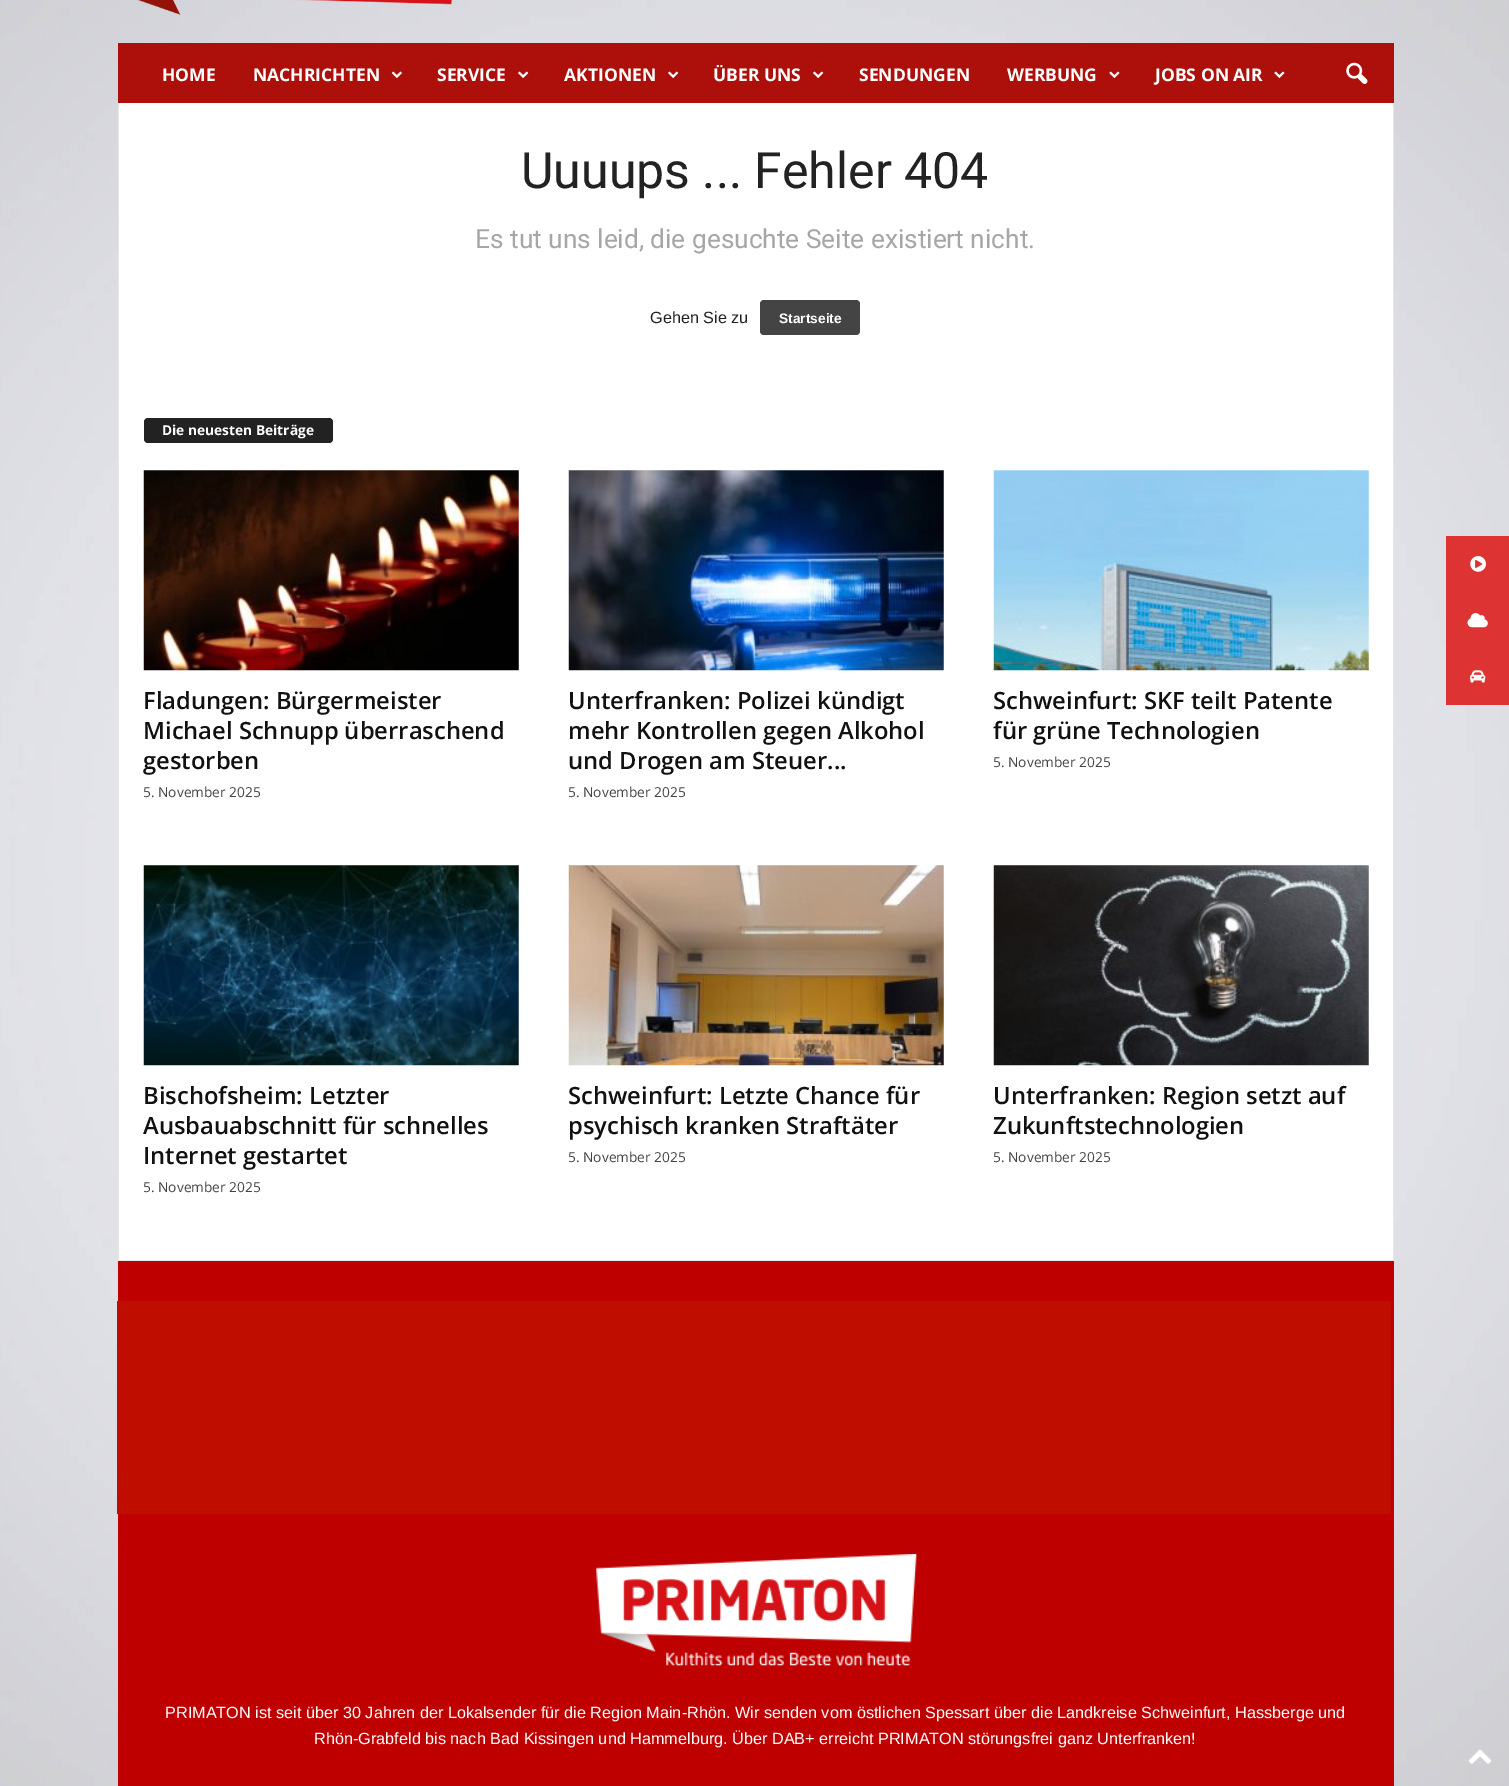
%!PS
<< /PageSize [1509 1786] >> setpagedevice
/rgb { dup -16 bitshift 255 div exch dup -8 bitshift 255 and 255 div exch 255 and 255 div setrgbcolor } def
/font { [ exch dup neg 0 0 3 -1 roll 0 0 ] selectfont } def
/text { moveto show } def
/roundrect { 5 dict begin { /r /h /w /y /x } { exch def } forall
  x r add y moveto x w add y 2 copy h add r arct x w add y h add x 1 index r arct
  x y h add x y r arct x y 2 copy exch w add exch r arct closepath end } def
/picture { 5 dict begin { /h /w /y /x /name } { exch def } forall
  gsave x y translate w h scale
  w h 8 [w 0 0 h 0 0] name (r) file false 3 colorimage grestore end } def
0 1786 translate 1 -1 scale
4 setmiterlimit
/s1 { /OpenSans-Bold 17.5 font 16#FFFFFF rgb } def
/s2 { /Roboto-Regular 50 font 16#222222 rgb } def
/s3 { /Roboto-Regular 26.25 font 16#A6A6A6 rgb } def
/s4 { /LiberationSans-Regular 16.25 font 16#222222 rgb } def
/s5 { /LiberationSans-Bold 13.75 font 16#FFFFFF rgb } def
/s6 { /OpenSans-Bold 13.75 font 16#FFFFFF rgb } def
/s7 { /OpenSans-SemiBold 23.75 font 16#111111 rgb } def
/s8 { /OpenSans-Regular 13.75 font 16#444444 rgb } def
/s9 { /LiberationSans-Regular 16.25 font 16#FFFFFF rgb } def
16#FFFFFF rgb
0 0 1509 1786 rectfill
(pic1.raw) 0 0 1509 1786 picture
(pic2.raw) 137 0 315 15 picture
16#AD0F0A rgb
118 43 1276 60 rectfill
s1
(HOME) 162 81 text
(NACHRICHTEN) 253 81 text
(pic3.raw) 391 71 11 7 picture
(SERVICE) 437 81 text
(pic4.raw) 518 71 11 7 picture
(AKTIONEN) 564 81 text
(pic4.raw) 668 71 11 7 picture
(ÜBER UNS) 713 81 text
(pic4.raw) 813 71 11 7 picture
(SENDUNGEN) 859 81 text
(WERBUNG) 1007 81 text
(pic5.raw) 1109 71 11 7 picture
(JOBS ON AIR) 1155 81 text
(pic5.raw) 1274 71 11 7 picture
(pic6.raw) 1346 62 22 22 picture
119 103 1274 1157 rectfill
16#E6E6E6 rgb
118 1260 1276 1 rectfill
118 103 1 1157 rectfill
s2
(Uuuups ... Fehler 404) 521 188 text
s3
(Es tut uns leid, die gesuchte Seite existiert nicht.) 475 248 text
s4
(Gehen Sie zu) 650 323 text
16#444444 rgb
760 300 100 35 4 roundrect fill
s5
(Startseite) 779 323 text
16#222222 rgb
144 418 189 25 4 roundrect fill
s6
(Die neuesten Beiträge) 162 435 text
(pic7.raw) 143 470 376 201 picture
s7
(Fladungen: Bürgermeister) 143 709 text
(Michael Schnupp überraschend) 143 739 text
(gestorben) 143 769 text
s8
(5. November 2025) 143 797 text
(pic8.raw) 568 470 376 201 picture
s7
(Unterfranken: Polizei kündigt) 568 709 text
(mehr Kontrollen gegen Alkohol) 568 739 text
(und Drogen am Steuer...) 568 769 text
s8
(5. November 2025) 568 797 text
(pic9.raw) 993 470 376 201 picture
s7
(Schweinfurt: SKF teilt Patente) 993 709 text
(für grüne Technologien) 993 739 text
s8
(5. November 2025) 993 767 text
(pic10.raw) 143 865 376 201 picture
s7
(Bischofsheim: Letzter) 143 1104 text
(Ausbauabschnitt für schnelles) 143 1134 text
(Internet gestartet) 143 1164 text
s8
(5. November 2025) 143 1192 text
(pic11.raw) 568 865 376 201 picture
s7
(Schweinfurt: Letzte Chance für) 568 1104 text
(psychisch kranken Straftäter) 568 1134 text
s8
(5. November 2025) 568 1162 text
(pic12.raw) 993 865 376 201 picture
s7
(Unterfranken: Region setzt auf) 993 1104 text
(Zukunftstechnologien) 993 1134 text
s8
(5. November 2025) 993 1162 text
16#E6E6E6 rgb
1393 103 1 1157 rectfill
16#BF0000 rgb
118 1261 1276 525 rectfill
16#BF0D00 rgb
117 1301 1274 213 rectfill
(pic13.raw) 596 1554 321 112 picture
s9
(PRIMATON ist seit über 30 Jahren der Lokalsender für die Region Main-Rhön. Wir senden vom östlichen Spessart über die Landkreise Schweinfurt, Hassberge und) 165 1718 text
(Rhön-Grabfeld bis nach Bad Kissingen und Hammelburg. Über DAB+ erreicht PRIMATON störungsfrei ganz Unterfranken!) 314 1744 text
16#DD3333 rgb
1446 536 63 169 rectfill
(pic14.raw) 1470 556 16 16 picture
(pic15.raw) 1467 613 21 15 picture
(pic16.raw) 1470 670 16 13 picture
(pic17.raw) 1468 1749 24 15 picture
showpage
